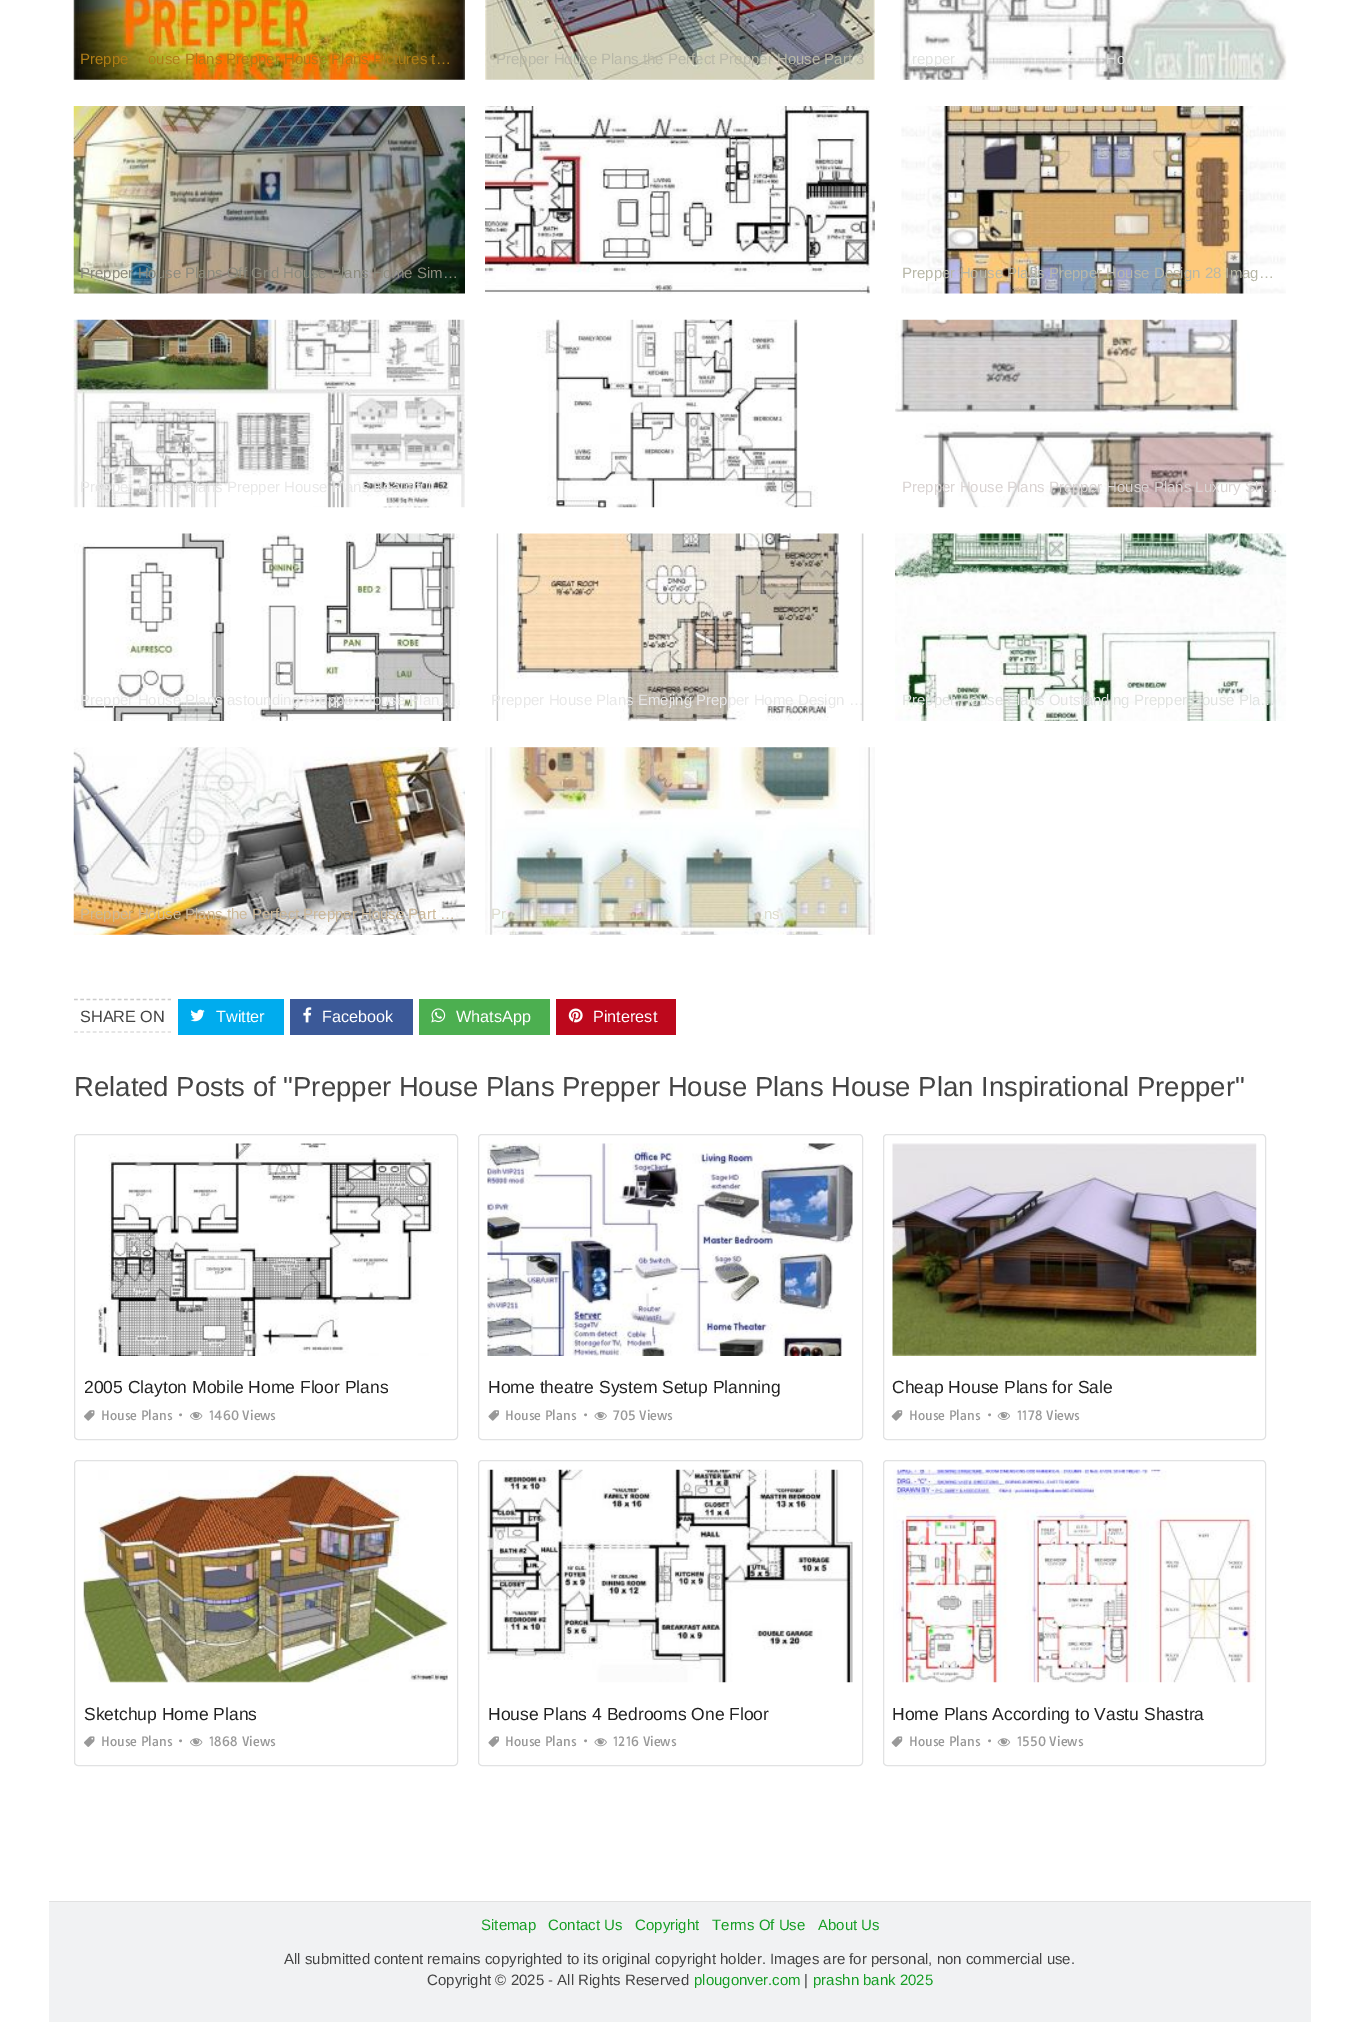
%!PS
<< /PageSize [1360 2022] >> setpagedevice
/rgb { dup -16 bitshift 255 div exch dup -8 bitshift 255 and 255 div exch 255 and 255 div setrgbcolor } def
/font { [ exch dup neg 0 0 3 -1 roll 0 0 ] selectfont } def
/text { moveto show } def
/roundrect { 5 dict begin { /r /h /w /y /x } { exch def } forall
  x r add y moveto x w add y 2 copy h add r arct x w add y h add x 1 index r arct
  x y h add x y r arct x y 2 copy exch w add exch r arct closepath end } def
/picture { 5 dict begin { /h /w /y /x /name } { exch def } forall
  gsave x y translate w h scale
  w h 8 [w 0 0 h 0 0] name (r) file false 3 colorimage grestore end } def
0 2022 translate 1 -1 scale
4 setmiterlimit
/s1 { /LiberationSans-Regular 15 font 16#B07D16 rgb } def
/s2 { /LiberationSans-Regular 15 font 16#B8B8A8 rgb } def
/s3 { /LiberationSans-Regular 15 font 16#E1E3E1 rgb } def
/s4 { /LiberationSans-Regular 15 font 16#8C8B7E rgb } def
/s5 { /LiberationSans-Regular 15 font 16#E8E8E8 rgb } def
/s6 { /LiberationSans-Regular 15 font 16#DAD4D3 rgb } def
/s7 { /LiberationSans-Regular 15 font 16#CCB898 rgb } def
/s8 { /LiberationSans-Regular 15 font 16#DDDDCE rgb } def
/s9 { /LiberationSans-Regular 16.25 font 16#444444 rgb } def
/s10 { /LiberationSans-Regular 16.25 font 16#FFFFFF rgb } def
/s11 { /LiberationSans-Regular 27.5 font 16#444444 rgb } def
/s12 { /LiberationSans-Regular 17.5 font 16#222222 rgb } def
/s13 { /Tauri-Regular 12.5 font 16#999999 rgb } def
/s14 { /LiberationSans-Regular 15 font 16#169E25 rgb } def
/s15 { /LiberationSans-Regular 15 font 16#444444 rgb } def
16#FFFFFF rgb
0 0 1360 2022 rectfill
(pic1.raw) 73 0 392 80 picture
s1
(Preppe) 80 64 text
(ouse Plans Prepper House Plans Pictures t…) 148 64 text
(pic2.raw) 485 0 390 80 picture
s2
(Prepper House Plans the Perfect Prepper House Part 3) 496 64 text
(pic3.raw) 900 0 387 80 picture
s3
(repper) 912 64 text
(Ho) 1106 64 text
(pic4.raw) 73 106 392 188 picture
s4
(Prepper House Plans Off Grid House Plans Home Sim…) 80 278 text
(pic5.raw) 485 106 390 188 picture
(pic6.raw) 901 106 385 188 picture
s2
(Prepper House Plans Prepper House Design 28 Imag…) 902 278 text
(pic7.raw) 73 319 392 189 picture
s5
(Prepper House Plans Prepper House Plans Beautiful …) 80 492 text
(pic8.raw) 537 319 281 189 picture
(pic9.raw) 895 319 390 189 picture
s6
(Prepper House Plans Prepper House Plans Luxury Sh…) 902 492 text
(pic10.raw) 74 533 386 188 picture
s5
(Prepper House Plans astounding Prepper House Plan…) 80 705 text
(pic11.raw) 496 533 368 188 picture
(Prepper House Plans Emejing Prepper Home Design …) 491 705 text
(pic12.raw) 895 533 392 188 picture
s3
(Prepper House Plans Outstanding Prepper House Pla…) 902 705 text
(pic13.raw) 73 747 392 188 picture
s7
(Prepper House Plans the Perfect Prepper House Part …) 80 919 text
(pic14.raw) 485 747 390 188 picture
s8
(Pr) 491 919 text
(ns) 764 919 text
s9
(SHARE ON) 80 1022 text
16#CCCCCC rgb
1.2 setlinewidth
[3.75 2.5] 0 setdash
74 999.5 moveto 171 999.5 lineto stroke
16#DDDDDD rgb
74 1032 moveto 171 1032 lineto stroke
16#00ACEE rgb
178 999 106 36 rectfill
(pic15.raw) 190 1009 15 13 picture
s10
(Twitter) 216 1022 text
16#3B5998 rgb
290 999 123 36 rectfill
(pic16.raw) 303 1007 9 16 picture
s10
(Facebook) 322 1022 text
16#4CAF50 rgb
419 999 131 36 rectfill
(pic17.raw) 431 1008 15 15 picture
s10
(WhatsApp) 456 1022 text
16#BD081C rgb
556 999 120 36 rectfill
(pic18.raw) 568 1008 15 15 picture
s10
(Pinterest) 593 1022 text
s11
(Related Posts of "Prepper House Plans Prepper House Plans House Plan Inspirational Prepper") 74 1096 text
16#E1E2E3 rgb
1 setlinewidth
[] 0 setdash
74.5 1134.5 383 305 3.5 roundrect stroke
(pic19.raw) 98 1143 341 213 picture
s12
(2005 Clayton Mobile Home Floor Plans) 84 1393 text
(pic20.raw) 84 1410 11 11 picture
s13
(House Plans) 101 1420 text
(•) 178 1420 text
(pic21.raw) 190 1412 13 8 picture
(1460 Views) 209 1420 text
16#E1E2E3 rgb
478.5 1134.5 384 305 3.5 roundrect stroke
(pic22.raw) 487 1143 366 213 picture
s12
(Home theatre System Setup Planning) 488 1393 text
(pic23.raw) 488 1410 11 11 picture
s13
(House Plans) 505 1420 text
(•) 583 1420 text
(pic24.raw) 594 1412 13 8 picture
(705 Views) 613 1420 text
16#E1E2E3 rgb
883.5 1134.5 382 305 3.5 roundrect stroke
(pic25.raw) 892 1143 365 213 picture
s12
(Cheap House Plans for Sale) 892 1393 text
(pic26.raw) 891 1410 12 11 picture
s13
(House Plans) 909 1420 text
(•) 987 1420 text
(pic27.raw) 997 1412 13 8 picture
(1178 Views) 1017 1420 text
16#E1E2E3 rgb
74.5 1460.5 383 305 3.5 roundrect stroke
(pic28.raw) 83 1470 365 213 picture
s12
(Sketchup Home Plans) 84 1720 text
(pic29.raw) 84 1736 11 11 picture
s13
(House Plans) 101 1746 text
(•) 178 1746 text
(pic30.raw) 190 1738 13 9 picture
(1868 Views) 209 1746 text
16#E1E2E3 rgb
478.5 1460.5 384 305 3.5 roundrect stroke
(pic31.raw) 487 1469 366 214 picture
s12
(House Plans 4 Bedrooms One Floor) 488 1720 text
(pic32.raw) 488 1736 11 11 picture
s13
(House Plans) 505 1746 text
(•) 583 1746 text
(pic33.raw) 594 1738 13 9 picture
(1216 Views) 613 1746 text
16#E1E2E3 rgb
883.5 1460.5 382 305 3.5 roundrect stroke
(pic34.raw) 893 1469 363 214 picture
s12
(Home Plans According to Vastu Shastra) 892 1720 text
(pic35.raw) 891 1736 12 11 picture
s13
(House Plans) 909 1746 text
(•) 987 1746 text
(pic36.raw) 997 1738 14 9 picture
(1550 Views) 1017 1746 text
16#F1F2F3 rgb
49 1902 1262 120 rectfill
16#E1E1E1 rgb
49 1901 1262 1 rectfill
s14
(Sitemap) 481 1930 text
(Contact Us) 548 1930 text
(Copyright) 635 1930 text
(Terms Of Use) 712 1930 text
(About Us) 818 1930 text
s15
(All submitted content remains copyrighted to its original copyright holder. Images are for personal, non commercial use.) 284 1964 text
(Copyright © 2025 - All Rights Reserved) 427 1985 text
s14
(plougonver.com) 694 1985 text
s15
(|) 804 1985 text
s14
(prashn bank 2025) 813 1985 text
showpage
